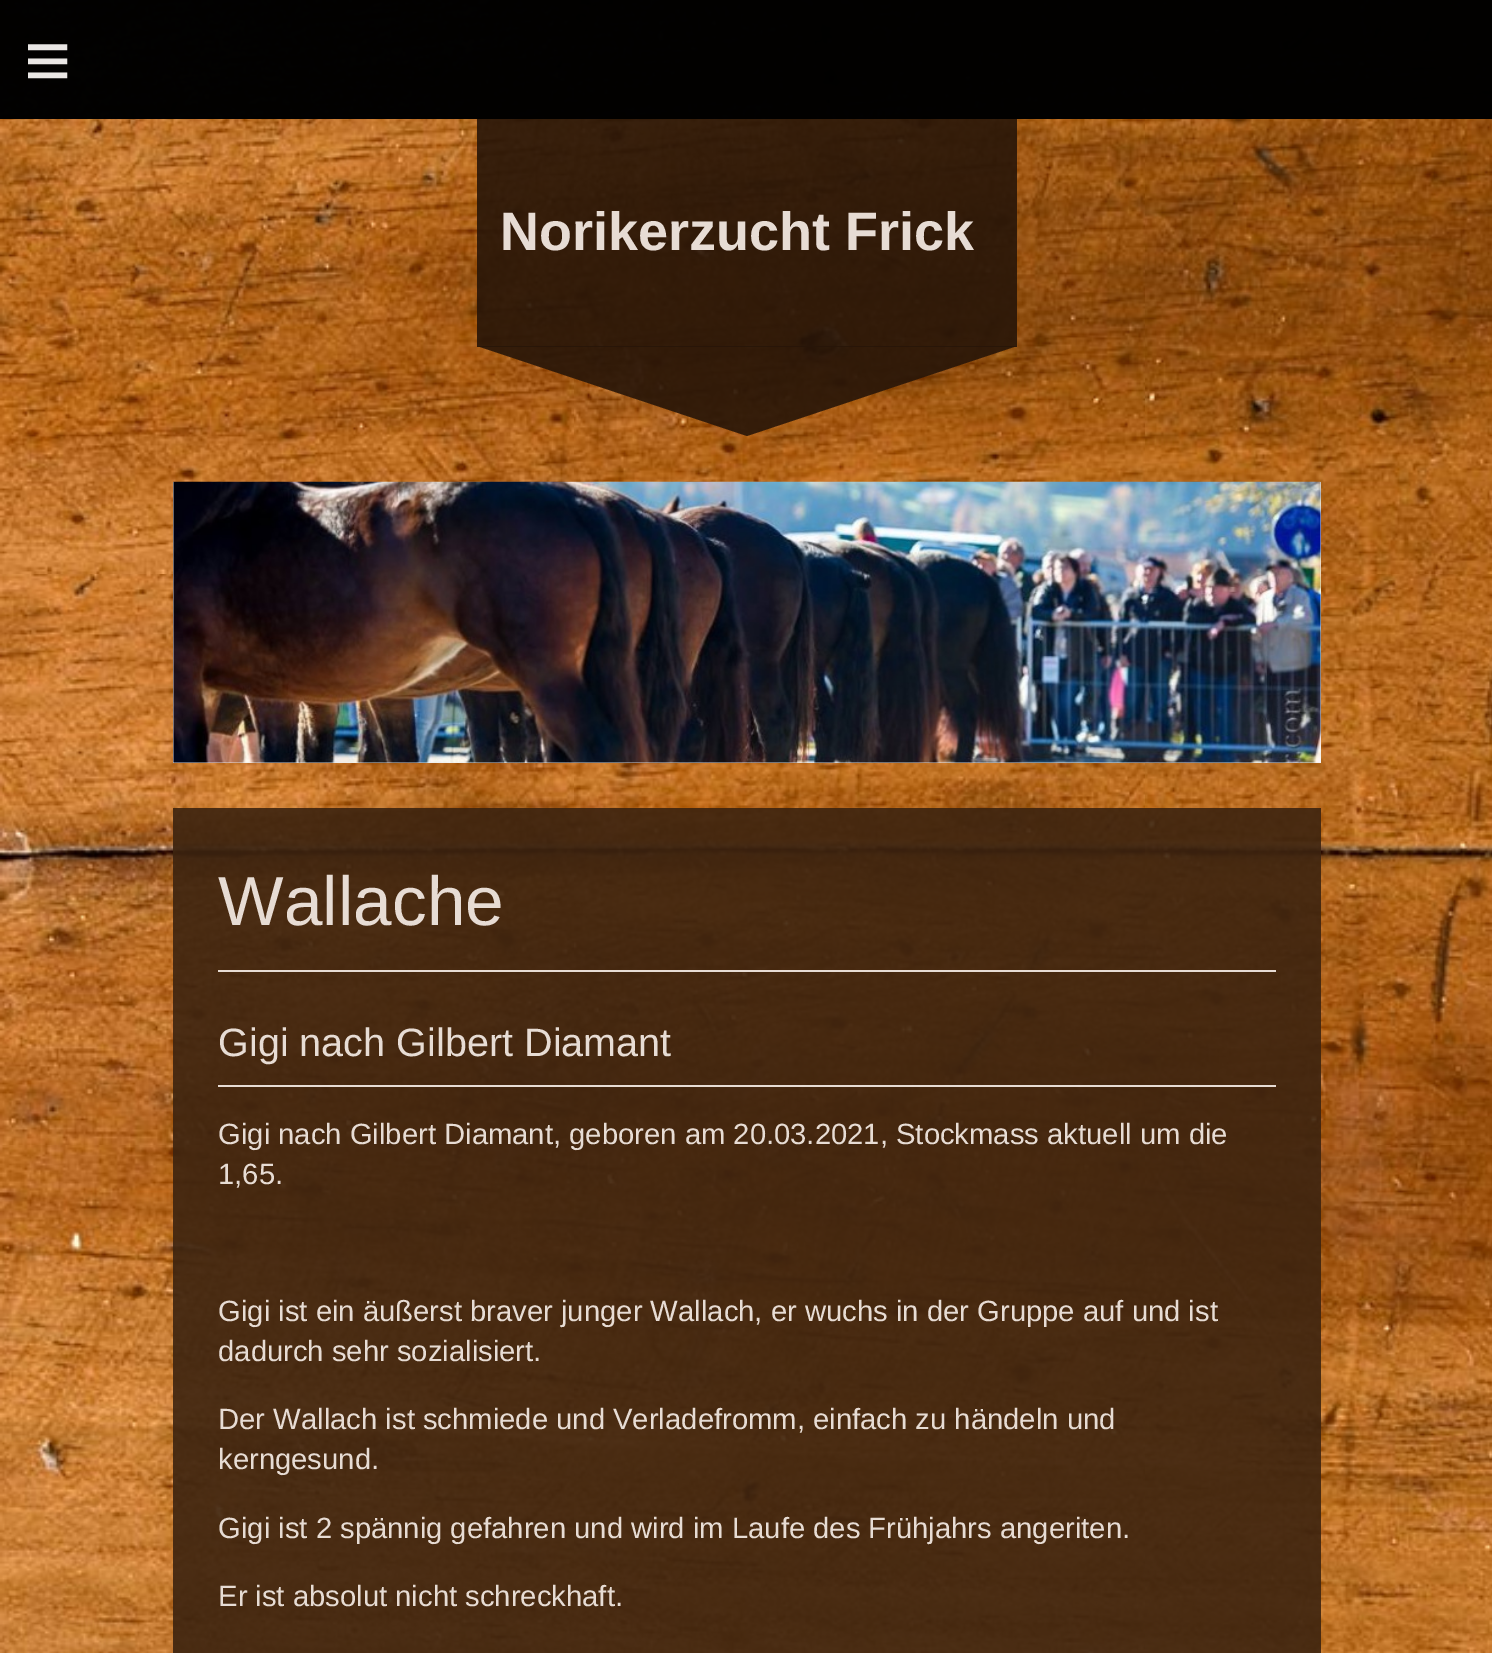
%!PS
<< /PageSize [1492 1653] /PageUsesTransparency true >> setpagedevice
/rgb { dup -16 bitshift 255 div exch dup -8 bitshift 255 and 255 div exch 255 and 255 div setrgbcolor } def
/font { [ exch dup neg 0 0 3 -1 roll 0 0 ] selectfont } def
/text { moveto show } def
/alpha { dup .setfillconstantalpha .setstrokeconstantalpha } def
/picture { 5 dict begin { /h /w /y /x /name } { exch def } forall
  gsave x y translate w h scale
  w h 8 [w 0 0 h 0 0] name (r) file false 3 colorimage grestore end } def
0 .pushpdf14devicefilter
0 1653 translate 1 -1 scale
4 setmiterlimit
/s1 { /LiberationSans-Bold 54 font 16#E7DCD4 rgb } def
/s2 { /LiberationSans-Regular 69.5 font 16#E7DCD4 rgb } def
/s3 { /LiberationSans-Regular 39.6 font 16#E7DCD4 rgb } def
/s4 { /LiberationSans-Regular 29.25 font 16#E7DCD4 rgb } def
16#FFFFFF rgb
0 0 1492 1653 rectfill
(pic1.raw) 0 0 1492 1653 picture
0.99 alpha
16#000000 rgb
0 0 1492 119 rectfill
/LiberationSans-Regular 81 font
1 alpha
16#EAE7E5 rgb
24 88 moveto 24 0 (≡) ashow
0.9 alpha
16#271508 rgb
477 119 540 228 rectfill
1 alpha
s1
(Norikerzucht Frick) 500 250 text
0.9 alpha
16#271508 rgb
477 346 moveto 1017 346 lineto 747 436 lineto closepath fill
1 alpha
16#EEEEEE rgb
173 482 1148 281 rectfill
(pic2.raw) 173 481 1148 282 picture
0.9 alpha
16#3C230F rgb
173 808 1148 845 rectfill
1 alpha
16#E7DCD4 rgb
218 970 1058 2 rectfill
s2
(Wallache) 218 925 text
218 1085 1058 2 rectfill
s3
(Gigi nach Gilbert Diamant) 218 1056 text
s4
(Gigi nach Gilbert Diamant, geboren am 20.03.2021, Stockmass aktuell um die) 218 1144 text
(1,65.) 218 1184 text
(Gigi ist ein äußerst braver junger Wallach, er wuchs in der Gruppe auf und ist) 218 1321 text
(dadurch sehr sozialisiert.) 218 1361 text
(Der Wallach ist schmiede und Verladefromm, einfach zu händeln und) 218 1429 text
(kerngesund.) 218 1469 text
(Gigi ist 2 spännig gefahren und wird im Laufe des Frühjahrs angeriten.) 218 1538 text
(Er ist absolut nicht schreckhaft.) 218 1606 text
.poppdf14devicefilter showpage
